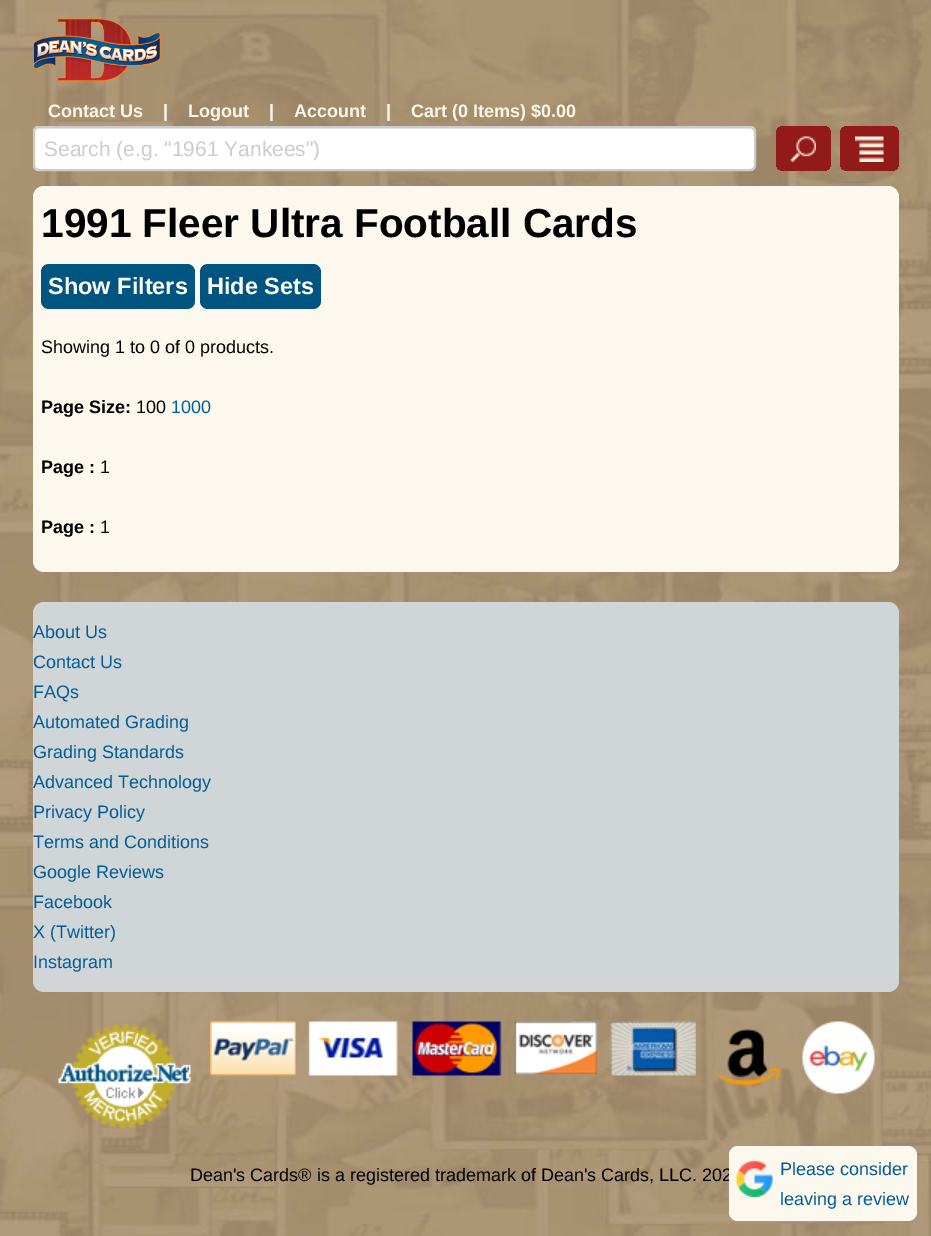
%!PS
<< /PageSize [931 1236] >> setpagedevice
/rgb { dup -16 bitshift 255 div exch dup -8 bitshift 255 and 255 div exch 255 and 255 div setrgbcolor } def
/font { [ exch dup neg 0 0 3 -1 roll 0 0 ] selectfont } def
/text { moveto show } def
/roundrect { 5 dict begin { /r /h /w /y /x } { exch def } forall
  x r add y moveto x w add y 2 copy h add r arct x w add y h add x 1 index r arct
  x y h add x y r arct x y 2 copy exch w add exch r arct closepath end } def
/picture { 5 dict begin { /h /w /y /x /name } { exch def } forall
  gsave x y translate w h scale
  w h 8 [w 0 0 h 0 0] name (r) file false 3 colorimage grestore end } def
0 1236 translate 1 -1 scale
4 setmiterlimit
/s1 { /LiberationSans-Bold 18 font 16#FDF7E7 rgb } def
/s2 { /LiberationSans-Regular 21 font 16#CCCCCC rgb } def
/s3 { /LiberationSans-Bold 40.5 font 16#000000 rgb } def
/s4 { /LiberationSans-Bold 23.5 font 16#FFFFFF rgb } def
/s5 { /LiberationSans-Regular 18 font 16#000000 rgb } def
/s6 { /LiberationSans-Bold 18 font 16#000000 rgb } def
/s7 { /LiberationSans-Regular 18 font 16#005D97 rgb } def
16#FFFFFF rgb
0 0 931 1236 rectfill
(pic1.raw) 0 0 931 1236 picture
(pic2.raw) 33 18 128 63 picture
s1
(Contact Us) 48 117 text
(|) 163 117 text
(Logout) 188 117 text
(|) 269 117 text
(Account) 294 117 text
(|) 386 117 text
(Cart \(0 Items\) $0.00) 411 117 text
16#FFFFFF rgb
33 126 723 45 6 roundrect fill
16#ECECEC rgb
39 129 moveto 750 129 lineto 752 129 754 131 754 134 curveto 754 166 lineto 753 169 lineto 754 168 755 166 755 165 curveto 755 133 lineto 755 130 753 128 750 128 curveto 40 128 lineto 38 128 37 129 36 130 curveto closepath fill
16#CCCCCC rgb
2 setlinewidth
34 127 721 43 5 roundrect stroke
s2
(Search \(e.g. "1961 Yankees"\)) 44 156 text
gsave 776 126 55 45 8 roundrect clip newpath
<< /ShadingType 2 /ColorSpace /DeviceRGB /Coords [803 126 803 171] /Extend [true true] /Function << /FunctionType 2 /Domain [0 1] /C0 [0.576 0.102 0.102] /C1 [0.569 0.102 0.102] /N 1 >> >> shfill grestore
(pic3.raw) 790 136 26 26 picture
gsave 840 126 59 45 8 roundrect clip newpath
<< /ShadingType 2 /ColorSpace /DeviceRGB /Coords [869 126 869 171] /Extend [true true] /Function << /FunctionType 2 /Domain [0 1] /C0 [0.576 0.102 0.102] /C1 [0.569 0.102 0.102] /N 1 >> >> shfill grestore
(pic4.raw) 855 136 29 26 picture
16#FDF8ED rgb
33 186 866 386 11 roundrect fill
s3
(1991 Fleer Ultra Football Cards) 41 237 text
16#005580 rgb
41 264 154 45 8 roundrect fill
s4
(Show Filters) 48 294 text
16#005580 rgb
200 264 121 45 8 roundrect fill
s4
(Hide Sets) 207 294 text
s5
(Showing 1 to 0 of 0 products.) 41 353 text
s6
(Page Size:) 41 413 text
s5
(100) 136 413 text
s7
(1000) 171 413 text
s6
(Page :) 41 473 text
s5
(1) 100 473 text
s6
(Page :) 41 533 text
s5
(1) 100 533 text
16#D0D5D8 rgb
33 602 866 390 11 roundrect fill
s7
(About Us) 33 638 text
(Contact Us) 33 668 text
(FAQs) 33 698 text
(Automated Grading) 33 728 text
(Grading Standards) 33 758 text
(Advanced Technology) 33 788 text
(Privacy Policy) 33 818 text
(Terms and Conditions) 33 848 text
(Google Reviews) 33 878 text
(Facebook) 33 908 text
(X \(Twitter\)) 33 938 text
(Instagram) 33 968 text
(pic5.raw) 58 1024 133 105 picture
(pic6.raw) 210 1021 486 55 picture
(pic7.raw) 717 1028 64 59 picture
(pic8.raw) 802 1021 73 73 picture
s5
(Dean's Cards® is a registered trademark of Dean's Cards, LLC. 202) 190 1181 text
16#FDF8ED rgb
729 1146 188 75 9 roundrect fill
(pic9.raw) 736 1160 37 37 picture
s7
(Please consider) 780 1175 text
(leaving a review) 780 1205 text
showpage
